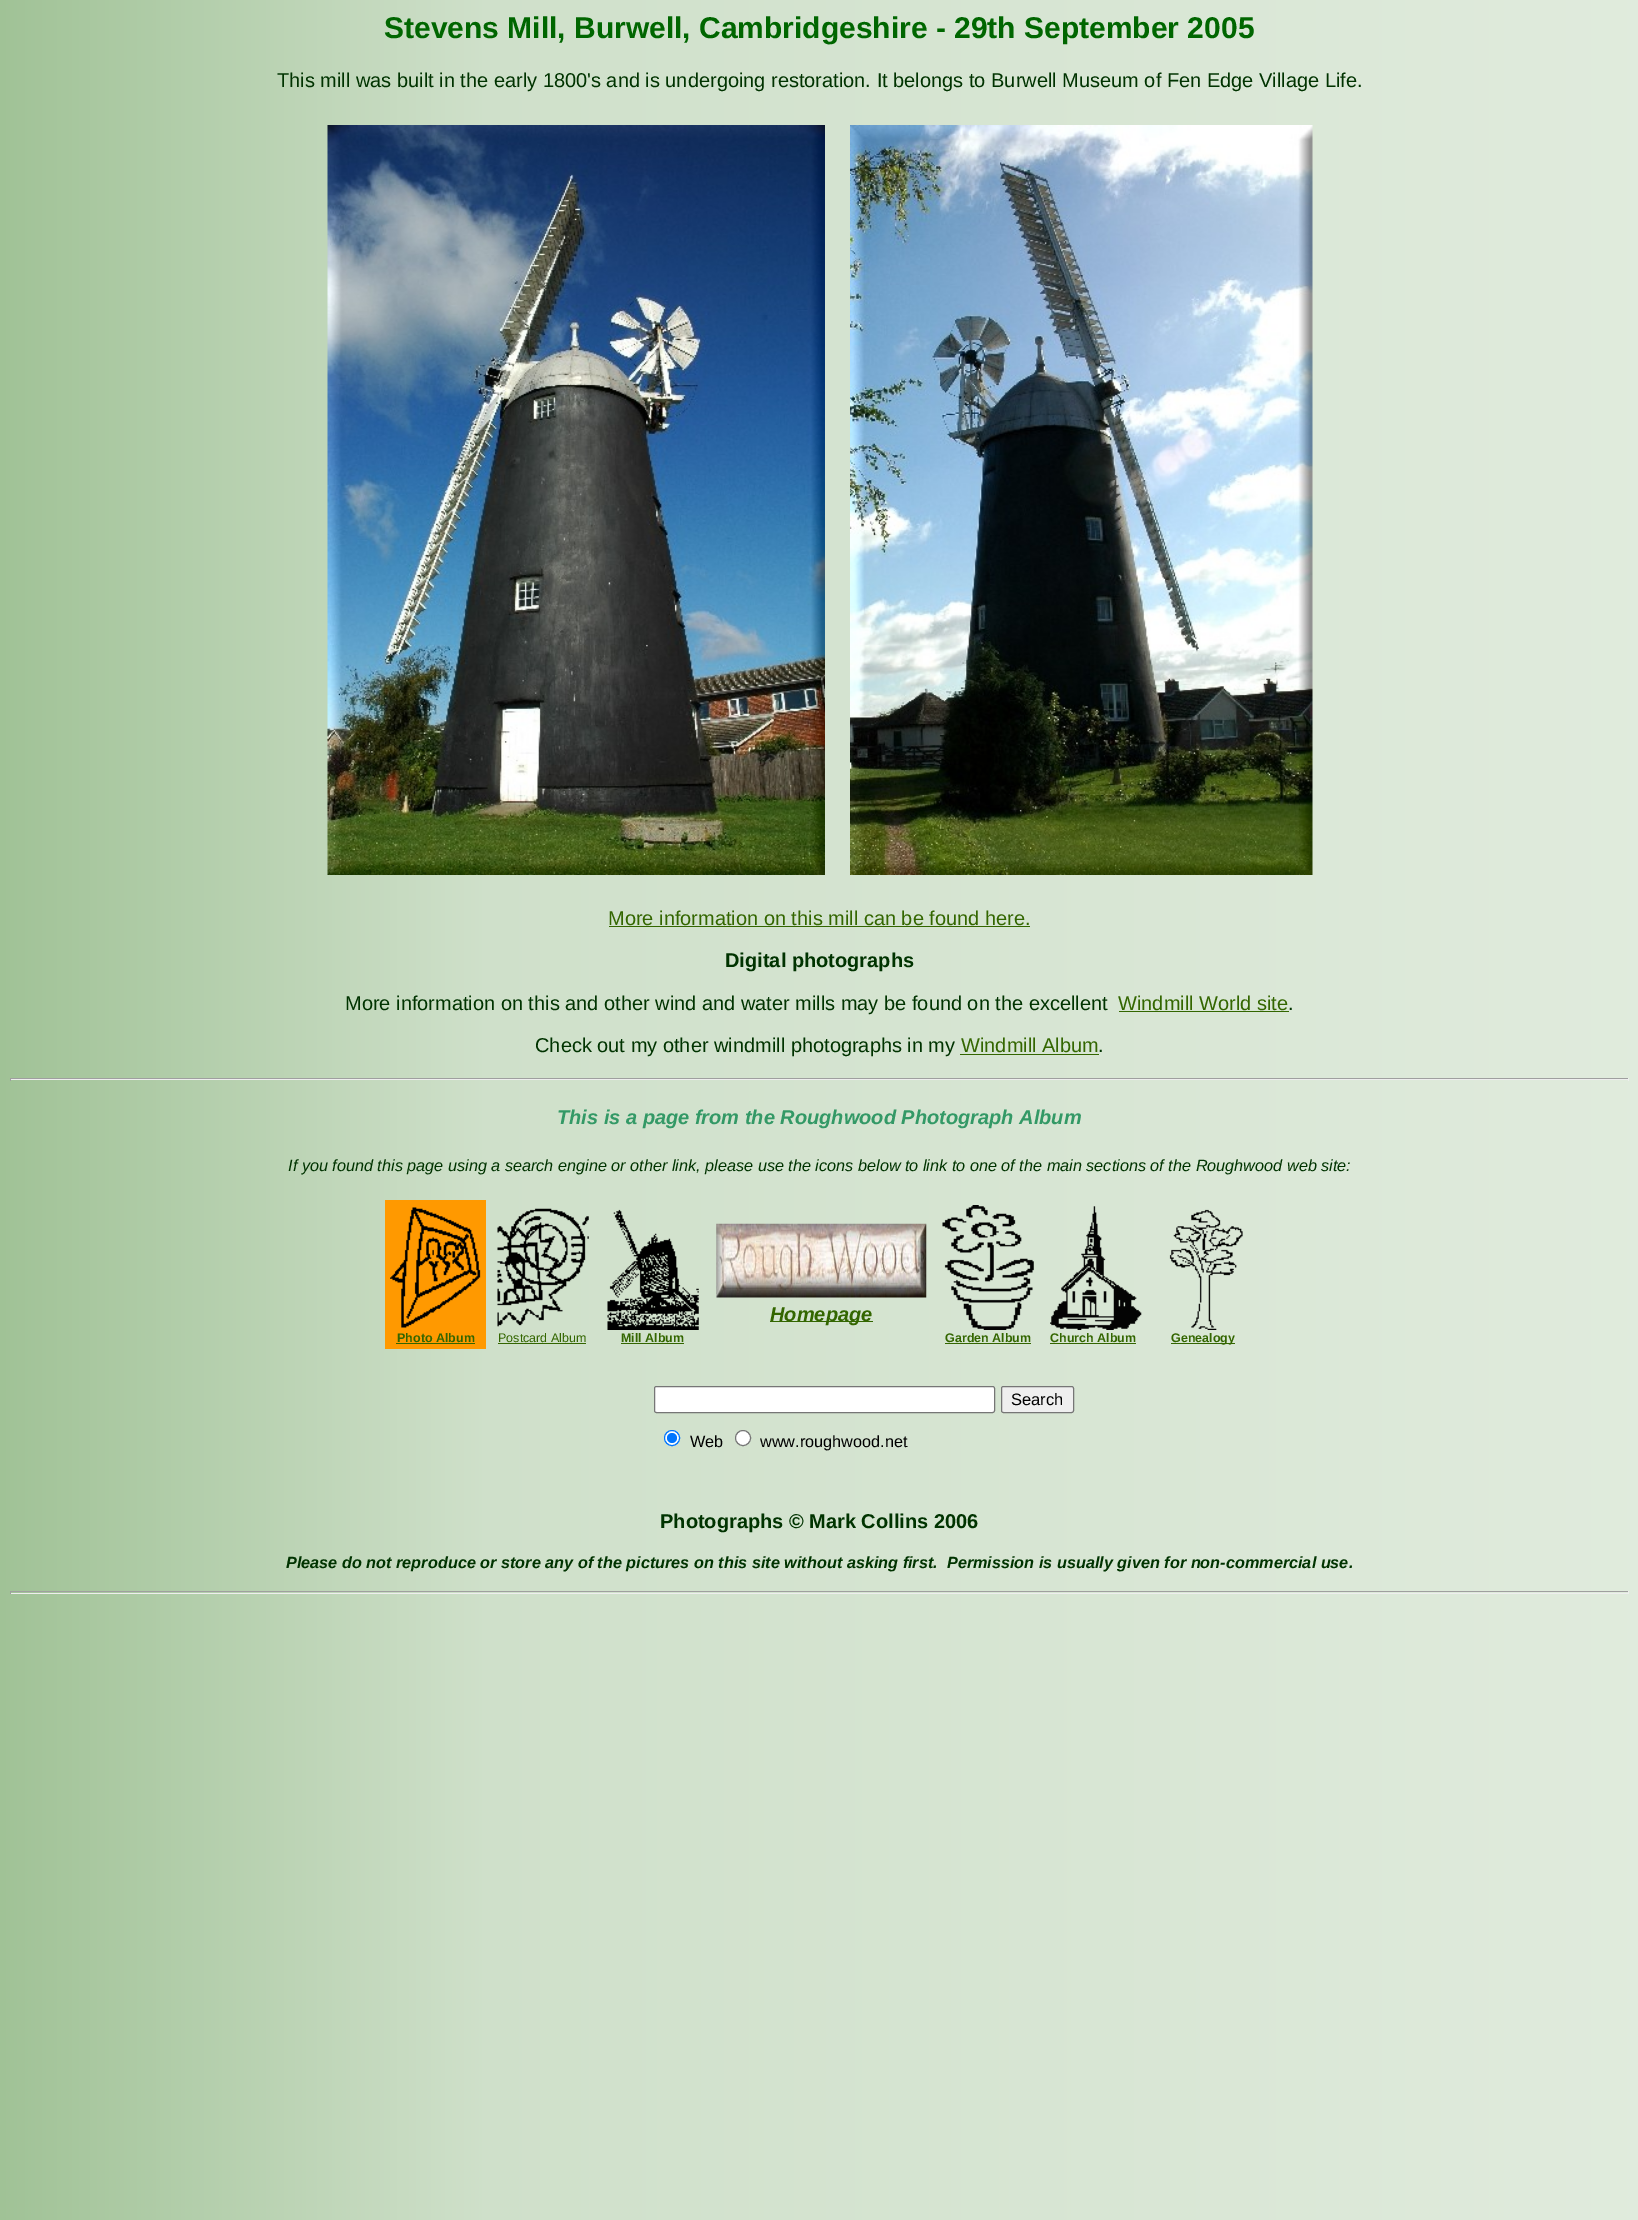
%!PS
<< /PageSize [1638 2220] >> setpagedevice
/rgb { dup -16 bitshift 255 div exch dup -8 bitshift 255 and 255 div exch 255 and 255 div setrgbcolor } def
/font { [ exch dup neg 0 0 3 -1 roll 0 0 ] selectfont } def
/text { moveto show } def
/circle { newpath 0 360 arc closepath } def
/roundrect { 5 dict begin { /r /h /w /y /x } { exch def } forall
  x r add y moveto x w add y 2 copy h add r arct x w add y h add x 1 index r arct
  x y h add x y r arct x y 2 copy exch w add exch r arct closepath end } def
/picture { 5 dict begin { /h /w /y /x /name } { exch def } forall
  gsave x y translate w h scale
  w h 8 [w 0 0 h 0 0] name (r) file false 3 colorimage grestore end } def
0 2220 translate 1 -1 scale
4 setmiterlimit
/s1 { /LiberationSans-Bold 30 font 16#006600 rgb } def
/s2 { /LiberationSans-Regular 20 font 16#003300 rgb } def
/s3 { /LiberationSans-Regular 20 font 16#336600 rgb } def
/s4 { /LiberationSans-Bold 20 font 16#003300 rgb } def
/s5 { /LiberationSans-BoldItalic 20 font 16#339966 rgb } def
/s6 { /LiberationSans-Italic 16.25 font 16#003300 rgb } def
/s7 { /LiberationSans-BoldItalic 20 font 16#336600 rgb } def
/s8 { /LiberationSans-Bold 12.5 font 16#336600 rgb } def
/s9 { /LiberationSans-Regular 12.5 font 16#336600 rgb } def
/s10 { /LiberationSans-Regular 16.5 font 16#000000 rgb } def
/s11 { /LiberationSans-Regular 16.25 font 16#000000 rgb } def
/s12 { /LiberationSans-BoldItalic 16.25 font 16#003300 rgb } def
16#FFFFFF rgb
0 0 1638 2220 rectfill
(pic1.raw) 0 0 1638 2220 picture
s1
(Stevens Mill, Burwell, Cambridgeshire - 29th September 2005) 384 38 text
s2
(This mill was built in the early 1800's and is undergoing restoration. It belongs to Burwell Museum of Fen Edge Village Life.) 277 87 text
(pic2.raw) 327 125 498 750 picture
(pic3.raw) 850 125 463 750 picture
s3
(More information on this mill can be found here.) 608 925 text
609 926 421 1 rectfill
s4
(Digital photographs) 725 967 text
s2
(More information on this and other wind and water mills may be found on the excellent) 345 1010 text
s3
(Windmill World site) 1118 1010 text
1119 1011 170 1 rectfill
s2
(.) 1288 1010 text
(Check out my other windmill photographs in my) 535 1052 text
s3
(Windmill Album) 961 1052 text
960 1054 139 1 rectfill
s2
(.) 1098 1052 text
16#9F9F9F rgb
10 1078 1619 1 rectfill
16#EEEEEE rgb
1628 1078 1 3 rectfill
10 1079 1619 1 rectfill
16#9F9F9F rgb
10 1078 1 3 rectfill
s5
(This is a page from the Roughwood Photograph Album) 557 1124 text
s6
(If you found this page using a search engine or other link, please use the icons below to link to one of the main sections of the Roughwood web site:) 288 1171 text
(pic4.raw) 716 1223 211 75 picture
16#336600 rgb
770 1321 103 1 rectfill
s7
(Homepage) 770 1321 text
16#FF9900 rgb
385 1200 101 149 rectfill
(pic5.raw) 390 1207 91 121 picture
s8
(Photo Album) 397 1342 text
396 1343 79 1 rectfill
(pic6.raw) 497 1208 92 119 picture
s9
(Postcard Album) 498 1342 text
498 1343 88 1 rectfill
(pic7.raw) 607 1209 92 121 picture
s8
(Mill Album) 621 1342 text
621 1343 63 1 rectfill
(pic8.raw) 942 1205 92 125 picture
(Garden Album) 945 1342 text
945 1343 86 1 rectfill
(pic9.raw) 1050 1206 92 124 picture
(Church Album) 1050 1342 text
1050 1343 86 1 rectfill
(pic10.raw) 1169 1209 74 121 picture
1171 1343 64 1 rectfill
(Genealogy) 1171 1342 text
16#FFFFFF rgb
654.5 1386.5 340 26 2 roundrect gsave fill grestore
16#767676 rgb
stroke
16#EFEFEF rgb
1001.5 1386.5 72 26 2 roundrect gsave fill grestore
16#767676 rgb
stroke
s10
(Search) 1011 1405 text
16#FFFFFF rgb
672 1438 7.5 circle gsave fill grestore
16#0075FF rgb
stroke
672 1438 5 circle fill
s11
(Web) 690 1447 text
16#FFFFFF rgb
743 1438 7.5 circle gsave fill grestore
16#767676 rgb
stroke
s11
(www.roughwood.net) 760 1447 text
s4
(Photographs © Mark Collins 2006) 660 1528 text
s12
(Please do not reproduce or store any of the pictures on this site without asking first.  Permission is usually given for non-commercial use.) 286 1568 text
16#9F9F9F rgb
10 1591 1619 1 rectfill
16#EEEEEE rgb
1628 1591 1 3 rectfill
10 1593 1619 1 rectfill
16#9F9F9F rgb
10 1591 1 3 rectfill
showpage
